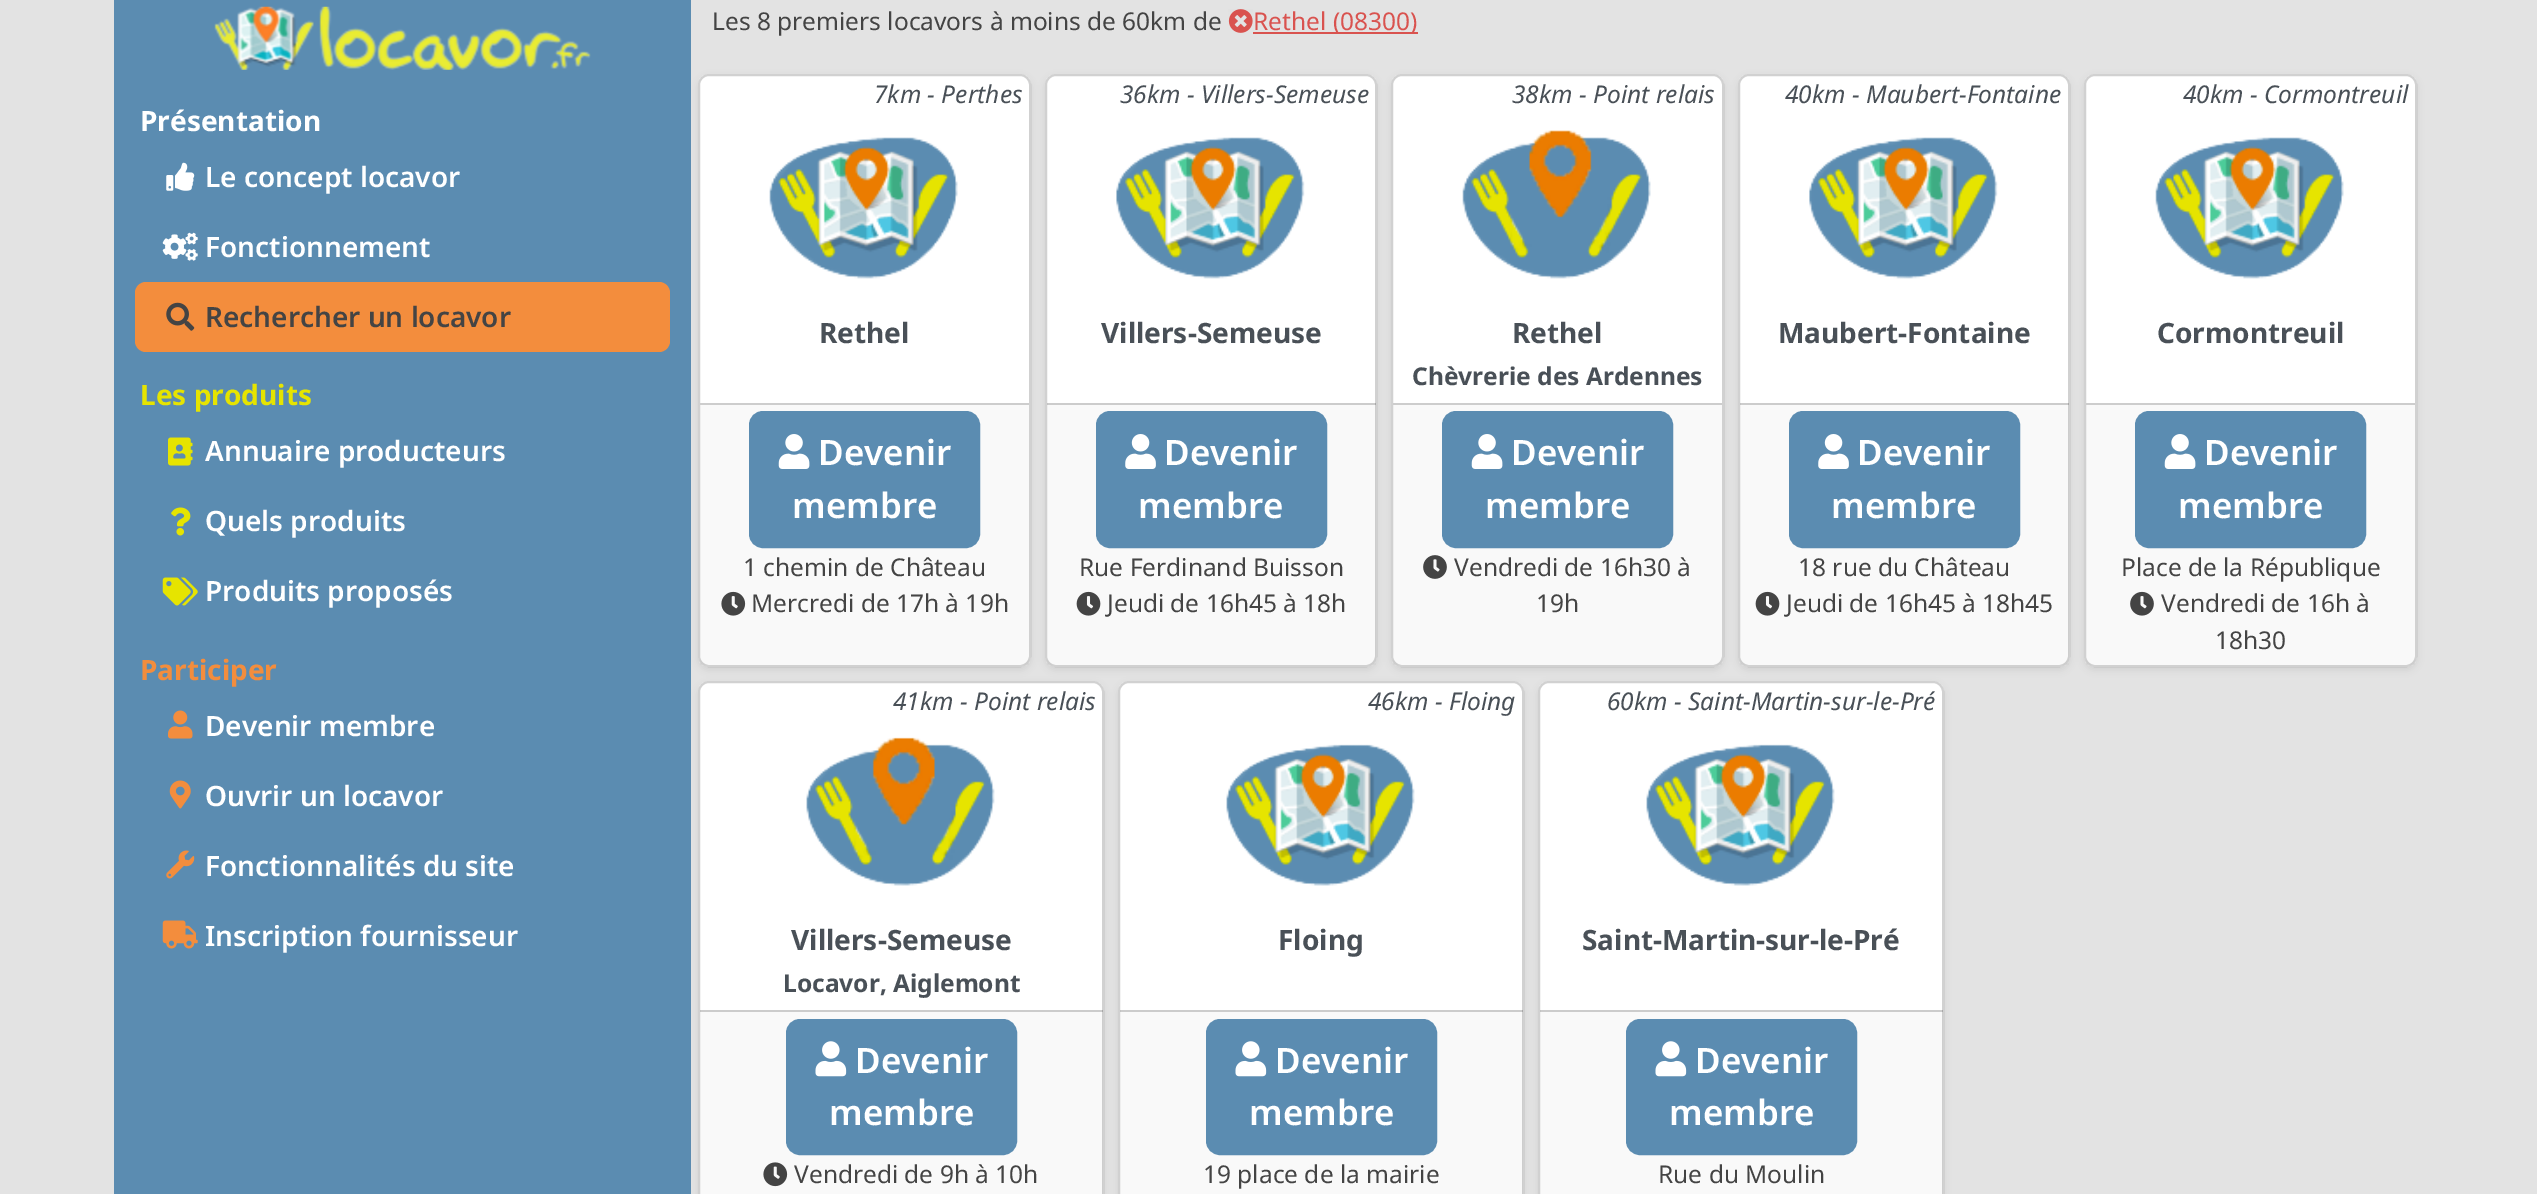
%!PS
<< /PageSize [2537 1194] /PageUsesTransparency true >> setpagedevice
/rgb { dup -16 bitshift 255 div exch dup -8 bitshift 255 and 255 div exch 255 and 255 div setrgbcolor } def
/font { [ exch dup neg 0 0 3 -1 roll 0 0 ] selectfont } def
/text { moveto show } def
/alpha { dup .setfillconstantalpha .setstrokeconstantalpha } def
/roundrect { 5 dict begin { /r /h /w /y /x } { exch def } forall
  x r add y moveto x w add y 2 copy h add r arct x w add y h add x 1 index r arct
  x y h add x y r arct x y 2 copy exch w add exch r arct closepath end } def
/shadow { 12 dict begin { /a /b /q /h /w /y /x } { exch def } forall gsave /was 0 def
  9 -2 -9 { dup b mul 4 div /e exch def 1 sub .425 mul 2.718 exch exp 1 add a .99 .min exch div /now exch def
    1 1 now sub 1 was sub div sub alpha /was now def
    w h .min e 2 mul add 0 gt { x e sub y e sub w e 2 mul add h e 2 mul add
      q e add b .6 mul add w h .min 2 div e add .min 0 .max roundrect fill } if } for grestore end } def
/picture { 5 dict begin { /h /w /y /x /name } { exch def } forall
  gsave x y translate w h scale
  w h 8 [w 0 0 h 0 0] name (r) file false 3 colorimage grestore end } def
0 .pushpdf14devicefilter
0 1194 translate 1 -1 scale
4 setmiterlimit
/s1 { /NotoSans-Bold 28 font 16#FFFFFF rgb } def
/s2 { /NotoSans-SemiBold 28 font 16#FFFFFF rgb } def
/s3 { /NotoSans-SemiBold 28 font 16#444444 rgb } def
/s4 { /NotoSans-Bold 28 font 16#E6E400 rgb } def
/s5 { /NotoSans-Bold 28 font 16#F38D3D rgb } def
/s6 { /NotoSans-Regular 24.5 font 16#444444 rgb } def
/s7 { /NotoSans-Regular 24.5 font 16#D9534F rgb } def
/s8 { /NotoSans-Italic 24.5 font 16#495057 rgb } def
/s9 { /NotoSans-Bold 28 font 16#495057 rgb } def
/s10 { /NotoSans-SemiBold 35 font 16#FFFFFF rgb } def
/s11 { /NotoSans-Bold 24.5 font 16#495057 rgb } def
16#E3E3E3 rgb
0 0 2537 1194 rectfill
16#5B8CB1 rgb
114 0 577 1194 rectfill
(pic1.raw) 214 6 100 64 picture
(pic2.raw) 319 6 272 64 picture
s1
(Présentation) 140 131 text
(pic3.raw) 166 162 29 29 picture
s2
(Le concept locavor) 205 187 text
(pic4.raw) 162 232 36 29 picture
(Fonctionnement) 205 257 text
16#F38D3D rgb
135 282 535 70 11 roundrect fill
(pic5.raw) 166 302 29 29 picture
s3
(Rechercher un locavor) 205 327 text
s4
(Les produits) 140 405 text
(pic6.raw) 168 437 25 29 picture
s2
(Annuaire producteurs) 205 461 text
(pic7.raw) 171 507 20 29 picture
(Quels produits) 205 531 text
(pic8.raw) 162 577 36 29 picture
(Produits proposés) 205 601 text
s5
(Participer) 140 680 text
(pic9.raw) 168 710 25 29 picture
s2
(Devenir membre) 205 736 text
(pic10.raw) 169 780 22 29 picture
(Ouvrir un locavor) 205 806 text
(pic11.raw) 166 850 29 29 picture
(Fonctionnalités du site) 205 876 text
(pic12.raw) 162 920 36 29 picture
(Inscription fournisseur) 205 946 text
s6
(Les 8 premiers locavors à moins de 60km de) 712 30 text
(pic13.raw) 1228 9 25 24 picture
16#D9534F rgb
1253 32 165 2 rectfill
(Rethel \(08300\)) 1253 30 text
16#000000 rgb
698 77 333 593 11 3.5 0.07 shadow
16#FFFFFF rgb
698 74 333 593 11 roundrect fill
0.18 alpha
16#000000 rgb
2 setlinewidth
699 75 331 591 10 roundrect stroke
1 alpha
s8
(7km - Perthes) 874 103 text
(pic14.raw) 769 137 189 142 picture
s9
(Rethel) 819 343 text
0.03 alpha
16#444444 rgb
700 405 329 260 rectfill
1 alpha
16#CDCDCD rgb
700 403 329 2 rectfill
16#5B8CB1 rgb
750 412 229 135 13 roundrect gsave fill grestore
stroke
(pic15.raw) 778 434 32 35 picture
s10
(Devenir) 818 465 text
(membre) 792 518 text
s6
(1 chemin de Château) 743 576 text
(pic16.raw) 721 591 25 25 picture
(Mercredi de 17h à 19h) 751 612 text
16#000000 rgb
1045 77 332 593 11 3.5 0.07 shadow
16#FFFFFF rgb
1045 74 332 593 11 roundrect fill
0.18 alpha
16#000000 rgb
1046 75 330 591 10 roundrect stroke
1 alpha
s8
(36km - Villers-Semeuse) 1120 103 text
(pic17.raw) 1116 137 189 142 picture
s9
(Villers-Semeuse) 1101 343 text
0.03 alpha
16#444444 rgb
1047 403 329 262 rectfill
0.18 alpha
16#000000 rgb
1047 403 329 2 rectfill
1 alpha
16#5B8CB1 rgb
1097 412 229 135 13 roundrect gsave fill grestore
stroke
(pic18.raw) 1125 434 31 35 picture
s10
(Devenir) 1164 465 text
(membre) 1138 518 text
s6
(Rue Ferdinand Buisson) 1079 576 text
(pic19.raw) 1076 591 25 25 picture
(Jeudi de 16h45 à 18h) 1107 612 text
16#000000 rgb
1391 77 333 593 11 3.5 0.07 shadow
16#FFFFFF rgb
1391 74 333 593 11 roundrect fill
0.18 alpha
16#000000 rgb
1392 75 331 591 10 roundrect stroke
1 alpha
s8
(38km - Point relais) 1512 103 text
(pic20.raw) 1462 130 189 149 picture
s9
(Rethel) 1512 343 text
s11
(Chèvrerie des Ardennes) 1412 385 text
0.03 alpha
16#444444 rgb
1393 405 329 260 rectfill
1 alpha
16#CDCDCD rgb
1393 403 329 2 rectfill
16#5B8CB1 rgb
1443 412 229 135 13 roundrect gsave fill grestore
stroke
(pic15.raw) 1471 434 32 35 picture
s10
(Devenir) 1511 465 text
(membre) 1485 518 text
(pic21.raw) 1423 555 24 24 picture
s6
(Vendredi de 16h30 à) 1454 576 text
(19h) 1536 612 text
16#000000 rgb
1738 77 332 593 11 3.5 0.07 shadow
16#FFFFFF rgb
1738 74 332 593 11 roundrect fill
0.18 alpha
16#000000 rgb
1739 75 330 591 10 roundrect stroke
1 alpha
s8
(40km - Maubert-Fontaine) 1785 103 text
(pic17.raw) 1809 137 189 142 picture
s9
(Maubert-Fontaine) 1778 343 text
0.03 alpha
16#444444 rgb
1740 403 329 262 rectfill
0.18 alpha
16#000000 rgb
1740 403 329 2 rectfill
1 alpha
16#5B8CB1 rgb
1790 412 229 135 13 roundrect gsave fill grestore
stroke
(pic18.raw) 1818 434 31 35 picture
s10
(Devenir) 1857 465 text
(membre) 1831 518 text
s6
(18 rue du Château) 1798 576 text
(pic19.raw) 1755 591 25 25 picture
(Jeudi de 16h45 à 18h45) 1786 612 text
16#000000 rgb
2084 77 333 593 11 3.5 0.07 shadow
16#FFFFFF rgb
2084 74 333 593 11 roundrect fill
0.18 alpha
16#000000 rgb
2085 75 331 591 10 roundrect stroke
1 alpha
s8
(40km - Cormontreuil) 2183 103 text
(pic14.raw) 2155 137 189 142 picture
s9
(Cormontreuil) 2157 343 text
0.03 alpha
16#444444 rgb
2086 405 329 260 rectfill
1 alpha
16#CDCDCD rgb
2086 403 329 2 rectfill
16#5B8CB1 rgb
2136 412 229 135 13 roundrect gsave fill grestore
stroke
(pic15.raw) 2164 434 32 35 picture
s10
(Devenir) 2204 465 text
(membre) 2178 518 text
s6
(Place de la République) 2121 576 text
(pic22.raw) 2130 591 24 25 picture
(Vendredi de 16h à) 2161 612 text
(18h30) 2215 649 text
16#000000 rgb
698 684 406 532 11 3.5 0.07 shadow
16#FFFFFF rgb
698 681 406 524 11 roundrect fill
0.18 alpha
16#000000 rgb
699 682 404 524 10 roundrect stroke
1 alpha
s8
(41km - Point relais) 893 710 text
(pic23.raw) 806 737 189 149 picture
s9
(Villers-Semeuse) 791 950 text
s11
(Locavor, Aiglemont) 783 992 text
0.03 alpha
16#444444 rgb
700 1010 403 184 rectfill
0.18 alpha
16#000000 rgb
700 1010 403 2 rectfill
1 alpha
16#5B8CB1 rgb
787 1020 229 134 13 roundrect gsave fill grestore
stroke
(pic24.raw) 815 1041 32 36 picture
s10
(Devenir) 855 1073 text
(membre) 829 1125 text
(pic25.raw) 763 1162 25 25 picture
s6
(Vendredi de 9h à 10h) 794 1183 text
16#000000 rgb
1118 684 406 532 11 3.5 0.07 shadow
16#FFFFFF rgb
1118 681 406 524 11 roundrect fill
0.18 alpha
16#000000 rgb
1119 682 404 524 10 roundrect stroke
1 alpha
s8
(46km - Floing) 1368 710 text
(pic26.raw) 1226 744 189 142 picture
s9
(Floing) 1278 950 text
0.03 alpha
16#444444 rgb
1120 1010 403 184 rectfill
0.18 alpha
16#000000 rgb
1120 1010 403 2 rectfill
1 alpha
16#5B8CB1 rgb
1207 1020 229 134 13 roundrect gsave fill grestore
stroke
(pic24.raw) 1235 1041 32 36 picture
s10
(Devenir) 1275 1073 text
(membre) 1249 1125 text
s6
(19 place de la mairie) 1203 1183 text
16#000000 rgb
1538 684 406 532 11 3.5 0.07 shadow
16#FFFFFF rgb
1538 681 406 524 11 roundrect fill
0.18 alpha
16#000000 rgb
1539 682 404 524 10 roundrect stroke
1 alpha
s8
(60km - Saint-Martin-sur-le-Pré) 1607 710 text
(pic27.raw) 1646 744 189 142 picture
s9
(Saint-Martin-sur-le-Pré) 1582 950 text
0.03 alpha
16#444444 rgb
1540 1010 403 184 rectfill
0.18 alpha
16#000000 rgb
1540 1010 403 2 rectfill
1 alpha
16#5B8CB1 rgb
1627 1020 229 134 13 roundrect gsave fill grestore
stroke
(pic24.raw) 1655 1041 32 36 picture
s10
(Devenir) 1695 1073 text
(membre) 1669 1125 text
s6
(Rue du Moulin) 1658 1183 text
.poppdf14devicefilter showpage
